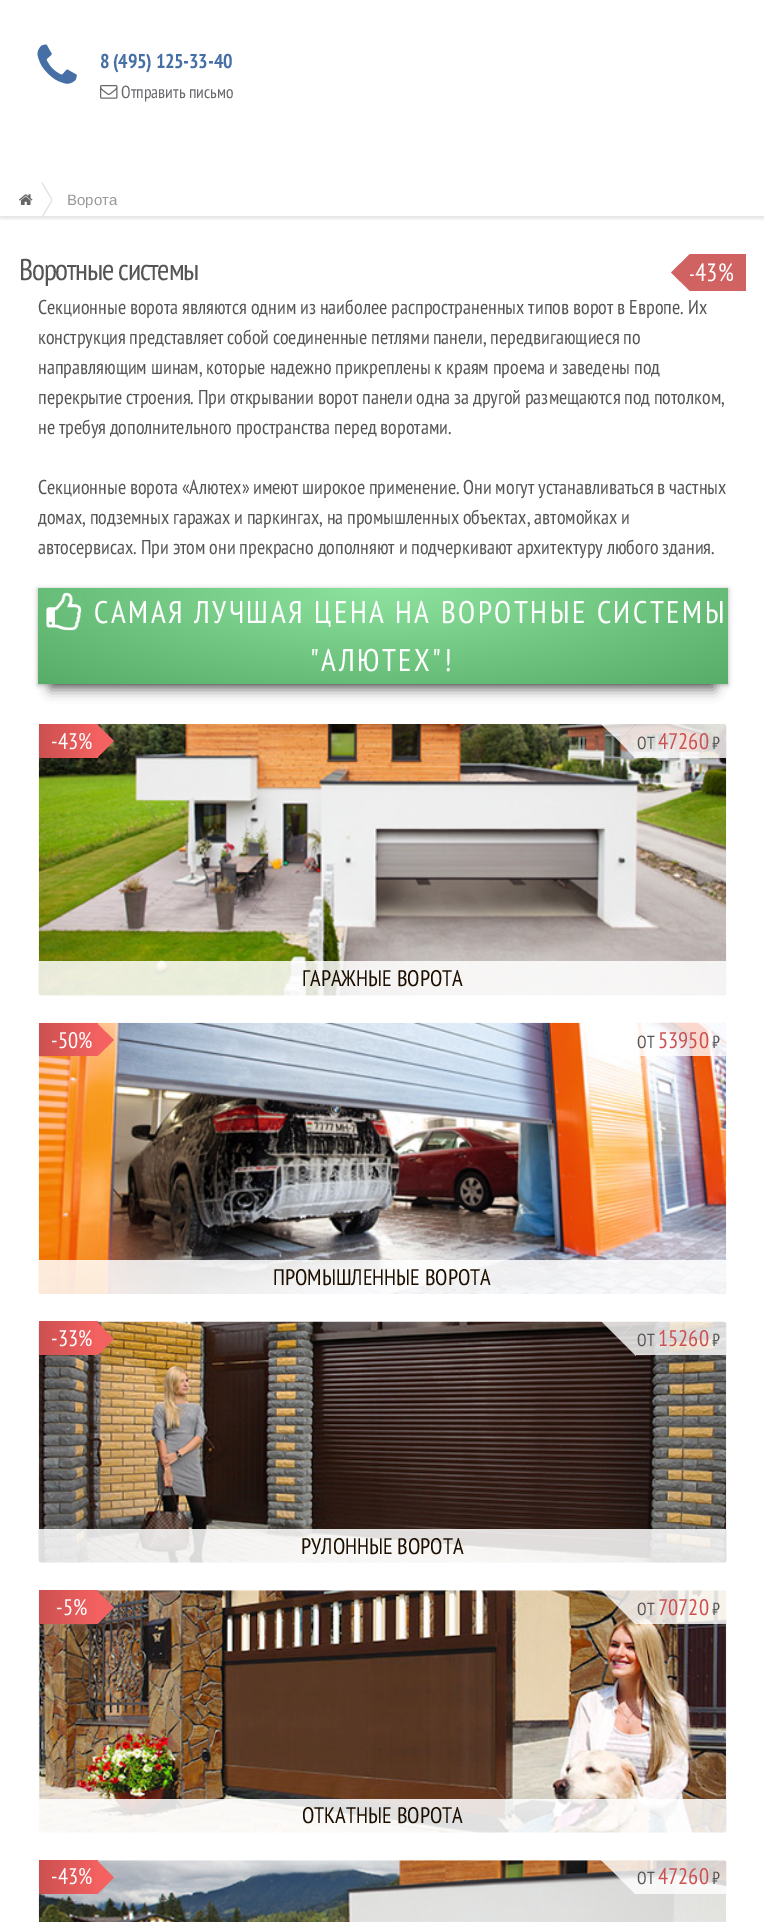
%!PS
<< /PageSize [764 1922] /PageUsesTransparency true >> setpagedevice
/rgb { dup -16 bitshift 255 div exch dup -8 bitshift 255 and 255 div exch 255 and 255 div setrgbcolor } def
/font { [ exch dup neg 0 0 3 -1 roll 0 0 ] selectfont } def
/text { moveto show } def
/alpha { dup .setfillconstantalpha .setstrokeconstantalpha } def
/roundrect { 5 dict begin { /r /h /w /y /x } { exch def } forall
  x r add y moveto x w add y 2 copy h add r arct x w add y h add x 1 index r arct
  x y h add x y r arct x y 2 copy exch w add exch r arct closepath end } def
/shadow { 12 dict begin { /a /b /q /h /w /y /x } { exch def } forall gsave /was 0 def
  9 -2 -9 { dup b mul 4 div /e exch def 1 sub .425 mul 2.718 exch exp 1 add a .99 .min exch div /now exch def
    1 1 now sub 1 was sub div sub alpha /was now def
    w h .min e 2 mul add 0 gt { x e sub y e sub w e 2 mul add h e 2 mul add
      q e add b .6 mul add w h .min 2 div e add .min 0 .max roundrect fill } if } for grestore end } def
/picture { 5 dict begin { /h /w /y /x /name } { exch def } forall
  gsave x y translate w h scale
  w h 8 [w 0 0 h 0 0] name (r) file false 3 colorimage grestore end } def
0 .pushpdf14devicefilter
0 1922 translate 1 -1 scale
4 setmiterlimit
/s1 { /PTSansNarrow-Regular 17.5 font 16#67686C rgb } def
/s2 { /LiberationSans-Regular 15 font 16#999999 rgb } def
/s3 { /PTSansNarrow-Regular 20 font 16#FFFFFF rgb } def
/s4 { /PTSansNarrow-Regular 25 font 16#FFFFFF rgb } def
/s5 { /PTSansNarrow-Regular 22.5 font 16#FFFFFF rgb } def
/s6 { /PTSansNarrow-Regular 17.5 font 16#555555 rgb } def
/s7 { /PTSansNarrow-Regular 22.5 font 16#CC5050 rgb } def
/s8 { /PTSansNarrow-Regular 22.5 font 16#1D0F00 rgb } def
16#FFFFFF rgb
0 0 764 1922 rectfill
(pic1.raw) 37 44 40 40 picture
/PTSansNarrow-Bold 20 font
16#456FA5 rgb
100 68 moveto -0.25 0 (8 \(495\) 125-33-40) ashow
(pic2.raw) 100 85 18 14 picture
s1
(Отправить письмо) 121 98 text
gsave
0 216 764 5 rectclip
16#E6E6E6 rgb
0 186 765 33 0 1 1 shadow
grestore
(pic3.raw) 19 194 14 11 picture
16#E2E2E2 rgb
41.5 183 moveto 42.5 182.5 lineto 52.5 199.5 lineto 51.5 200 lineto closepath fill
51.5 200 moveto 52.5 200.5 lineto 42.5 217.5 lineto 41.5 217 lineto closepath fill
s2
(Ворота) 67 205 text
/PTSansNarrow-Regular 30 font
16#555555 rgb
19 280 moveto -1.25 0 (Воротные системы) ashow
16#D16262 rgb
690 254 56 37 rectfill
690 254 moveto 690 291 lineto 671 272.5 lineto closepath fill
s3
(-) 689 281 text
s4
(43%) 695 281 text
/PTSansNarrow-Regular 20 font
16#555555 rgb
38 314 moveto -0.25 0 32 (Секционные ворота являются одним из наиболее распространенных типов ворот в Европе. Их) widthshow
38 344 moveto -0.75 0 32 (конструкция представляет собой соединенные петлями панели, передвигающиеся по) widthshow
38 374 moveto -0.25 0 32 (направляющим шинам, которые надежно прикреплены к краям проема и заведены под) widthshow
38 404 moveto -0.5 0 32 (перекрытие строения. При открывании ворот панели одна за другой размещаются под потолком,) widthshow
38 434 moveto -0.5 0 32 (не требуя дополнительного пространства перед воротами.) widthshow
38 494 moveto -0.5 0 32 (Секционные ворота «Алютех» имеют широкое применение. Они могут устанавливаться в частных) widthshow
38 524 moveto -0.5 0 32 (домах, подземных гаражах и паркингах, на промышленных объектах, автомойках и) widthshow
38 554 moveto -0.4 0 32 (автосервисах. При этом они прекрасно дополняют и подчеркивают архитектуру любого здания.) widthshow
16#000000 rgb
38 589 690 96 0 2.5 0.3 shadow
50 619 665 71 0 6 0.5 shadow
gsave 38 588 moveto 728 588 lineto 728 684 lineto 38 684 lineto closepath clip newpath 383 588 translate 488 136 scale
<< /ShadingType 3 /ColorSpace /DeviceRGB /Coords [0 0 0 0 0 1] /Extend [true true] /Function << /FunctionType 2 /Domain [0 1] /C0 [0.557 0.89 0.62] /C1 [0.341 0.678 0.408] /N 1 >> >> shfill grestore
(pic4.raw) 46 592 36 39 picture
/PTSansNarrow-Regular 31.25 font
16#FFFFFF rgb
94 623 moveto 2.5 0 (САМАЯ ЛУЧШАЯ ЦЕНА НА ВОРОТНЫЕ СИСТЕМЫ) ashow
310 671 moveto 2.5 0 ("АЛЮТЕХ"!) ashow
(pic5.raw) 38 724 689 272 picture
gsave 39 724 moveto 98 724 lineto 98 758 lineto 39 758 lineto closepath clip newpath
<< /ShadingType 2 /ColorSpace /DeviceRGB /Coords [39 741 98 741] /Extend [true true] /Function << /FunctionType 2 /Domain [0 1] /C0 [0.8 0.314 0.314] /C1 [0.957 0.38 0.38] /N 1 >> >> shfill grestore
s5
(-43%) 51 749 text
16#F46161 rgb
97.5 757.5 moveto 97.5 725 lineto 114 741 lineto closepath fill
0.8 alpha
16#FFFFFF rgb
636 724 90 34 rectfill
601 724 moveto 636 724 lineto 619 741 lineto closepath fill
636 724 moveto 636 759 lineto 619 741 lineto closepath fill
1 alpha
s6
(ОТ) 637 749 text
s7
(47260) 658 749 text
s6
(₽) 712 749 text
0.85 alpha
16#FFFFFF rgb
39 961 687 34 rectfill
1 alpha
s8
(ГАРАЖНЫЕ ВОРОТА) 302 986 text
(pic6.raw) 38 1022 689 272 picture
gsave 39 1023 moveto 98 1023 lineto 98 1056 lineto 39 1056 lineto closepath clip newpath
<< /ShadingType 2 /ColorSpace /DeviceRGB /Coords [39 1039 98 1039] /Extend [true true] /Function << /FunctionType 2 /Domain [0 1] /C0 [0.8 0.314 0.314] /C1 [0.957 0.38 0.38] /N 1 >> >> shfill grestore
s5
(-50%) 51 1048 text
16#F46161 rgb
97.5 1056 moveto 97.5 1024 lineto 114 1040 lineto closepath fill
0.8 alpha
16#FFFFFF rgb
636 1023 90 33 rectfill
1 alpha
s6
(ОТ) 637 1048 text
s7
(53950) 658 1048 text
s6
(₽) 712 1048 text
0.85 alpha
16#FFFFFF rgb
39 1260 687 34 rectfill
1 alpha
s8
(ПРОМЫШЛЕННЫЕ ВОРОТА) 273 1285 text
(pic7.raw) 38 1321 689 242 picture
gsave 39 1321 moveto 98 1321 lineto 98 1355 lineto 39 1355 lineto closepath clip newpath
<< /ShadingType 2 /ColorSpace /DeviceRGB /Coords [39 1338 98 1338] /Extend [true true] /Function << /FunctionType 2 /Domain [0 1] /C0 [0.8 0.314 0.314] /C1 [0.957 0.38 0.38] /N 1 >> >> shfill grestore
s5
(-33%) 51 1346 text
16#F46161 rgb
97.5 1355 moveto 97.5 1322.5 lineto 114 1339 lineto closepath fill
0.8 alpha
16#FFFFFF rgb
636 1321 90 34 rectfill
601 1321 moveto 636 1321 lineto 619 1339 lineto closepath fill
636 1321 moveto 636 1356 lineto 619 1339 lineto closepath fill
1 alpha
s6
(ОТ) 637 1346 text
s7
(15260) 658 1346 text
s6
(₽) 712 1346 text
0.85 alpha
16#FFFFFF rgb
39 1529 687 34 rectfill
1 alpha
s8
(РУЛОННЫЕ ВОРОТА) 301 1554 text
(pic8.raw) 38 1590 689 243 picture
gsave 39 1590 moveto 98 1590 lineto 98 1624 lineto 39 1624 lineto closepath clip newpath
<< /ShadingType 2 /ColorSpace /DeviceRGB /Coords [39 1607 98 1607] /Extend [true true] /Function << /FunctionType 2 /Domain [0 1] /C0 [0.8 0.314 0.314] /C1 [0.957 0.38 0.38] /N 1 >> >> shfill grestore
s5
(-5%) 56 1615 text
16#F46161 rgb
97.5 1624 moveto 97.5 1591 lineto 114 1607.5 lineto closepath fill
0.8 alpha
16#FFFFFF rgb
636 1590 90 34 rectfill
601 1590 moveto 636 1590 lineto 619 1607.5 lineto closepath fill
636 1590 moveto 636 1625 lineto 619 1607.5 lineto closepath fill
1 alpha
s6
(ОТ) 637 1615 text
s7
(70720) 658 1615 text
s6
(₽) 712 1615 text
0.85 alpha
16#FFFFFF rgb
39 1799 687 34 rectfill
1 alpha
s8
(ОТКАТНЫЕ ВОРОТА) 302 1823 text
(pic9.raw) 38 1860 689 62 picture
gsave 39 1860 moveto 98 1860 lineto 98 1894 lineto 39 1894 lineto closepath clip newpath
<< /ShadingType 2 /ColorSpace /DeviceRGB /Coords [39 1877 98 1877] /Extend [true true] /Function << /FunctionType 2 /Domain [0 1] /C0 [0.8 0.314 0.314] /C1 [0.957 0.38 0.38] /N 1 >> >> shfill grestore
s5
(-43%) 51 1884 text
16#F46161 rgb
97.5 1894 moveto 97.5 1861 lineto 114 1877.5 lineto closepath fill
0.8 alpha
16#FFFFFF rgb
636 1860 90 34 rectfill
601 1860 moveto 636 1860 lineto 619 1877.5 lineto closepath fill
636 1860 moveto 636 1895 lineto 619 1877.5 lineto closepath fill
1 alpha
s6
(ОТ) 637 1884 text
s7
(47260) 658 1884 text
s6
(₽) 712 1884 text
.poppdf14devicefilter showpage
